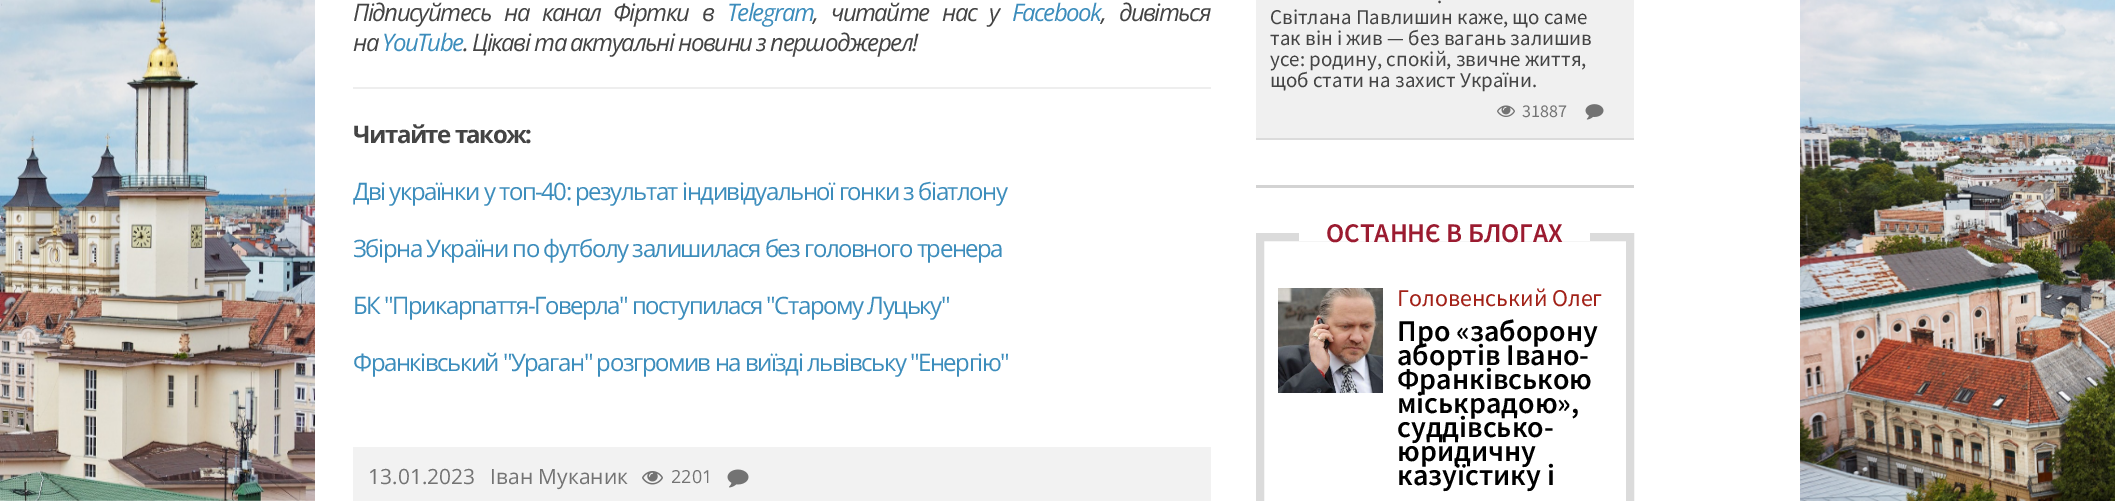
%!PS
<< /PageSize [2115 501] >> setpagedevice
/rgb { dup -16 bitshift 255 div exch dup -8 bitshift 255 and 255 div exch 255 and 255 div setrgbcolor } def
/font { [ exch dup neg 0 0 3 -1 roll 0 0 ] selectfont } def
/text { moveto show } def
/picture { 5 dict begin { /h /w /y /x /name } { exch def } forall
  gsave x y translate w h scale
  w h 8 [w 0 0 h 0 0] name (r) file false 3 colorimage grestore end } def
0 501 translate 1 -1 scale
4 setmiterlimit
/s1 { /OpenSans-Regular 21 font 16#737373 rgb } def
/s2 { /OpenSans-Regular 18 font 16#737373 rgb } def
/s3 { /SourceSansPro-Regular 21 font 16#444444 rgb } def
/s4 { /SourceSansPro-Regular 18 font 16#737373 rgb } def
/s5 { /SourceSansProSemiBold-SemiBold 27 font 16#9B1B30 rgb } def
/s6 { /SourceSansPro-Regular 24 font 16#A22118 rgb } def
/s7 { /SourceSansProSemiBold-SemiBold 30 font 16#000000 rgb } def
16#FFFFFF rgb
0 0 2115 501 rectfill
(pic1.raw) 0 0 315 501 picture
(pic2.raw) 1800 0 315 501 picture
/OpenSans-Italic 24 font
16#444444 rgb
353 21 moveto 8.5 0 32 -1.5 0 (Підписуйтесь на канал) awidthshow
613 21 moveto -1.5 0 (Фіртки) ashow
702 21 moveto -1.5 0 (в) ashow
16#3C8DBC rgb
727 21 moveto -1.5 0 (Telegram) ashow
16#444444 rgb
813 21 moveto 8.5 0 32 -1.5 0 (, читайте нас у) awidthshow
16#3C8DBC rgb
1012 21 moveto -1.5 0 (Facebook) ashow
16#444444 rgb
1101 21 moveto 8.5 0 32 -1.5 0 (, дивіться) awidthshow
353 51 moveto -1.5 0 (на) ashow
16#3C8DBC rgb
382 51 moveto -1.5 0 (YouTubе) ashow
16#444444 rgb
463 51 moveto -1.5 0 (. Цікаві та актуальні новини з першоджерел!) ashow
16#EEEEEE rgb
353 87 858 2 rectfill
/OpenSans-Bold 24 font
16#444444 rgb
353 143 moveto -1.5 0 (Читайте також:) ashow
/OpenSans-Regular 24 font
16#3C8DBC rgb
353 200 moveto -1.5 0 (Дві українки у топ-40: результат індивідуальної гонки з біатлону) ashow
353 257 moveto -1.5 0 (Збірна України по футболу залишилася без головного тренера) ashow
353 314 moveto -1.5 0 (БК "Прикарпаття-Говерла" поступилася "Старому Луцьку") ashow
353 371 moveto -1.5 0 (Франківський "Ураган" розгромив на виїзді львівську "Енергію") ashow
16#F2F2F2 rgb
353 447 858 54 rectfill
s1
(13.01.2023) 368 484 text
(Іван Муканик) 490 484 text
(pic3.raw) 642 471 21 14 picture
s2
(2201) 671 483 text
(pic4.raw) 727 469 22 19 picture
16#F0F0F0 rgb
1256 0 378 138 rectfill
16#DBDBDB rgb
1256 138 378 2 rectfill
s3
(.) 1437 3 text
(Світлана Павлишин каже, що саме) 1270 24 text
(так він і жив — без вагань залишив) 1270 45 text
(усе: родину, спокій, звичне життя,) 1270 66 text
(щоб стати на захист України.) 1270 87 text
(pic5.raw) 1497 105 18 12 picture
s4
(31887) 1522 117 text
(pic6.raw) 1585 104 19 16 picture
16#D3D3D3 rgb
1256 185 378 3 rectfill
16#DBDBDB rgb
8 setlinewidth
1260 237 370 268 rectstroke
16#FFFFFF rgb
1299 233 291 8 rectfill
s5
(ОСТАННЄ В БЛОГАХ) 1326 242 text
(pic7.raw) 1278 288 105 105 picture
s6
(Головенський Олег) 1397 306 text
s7
(Про «заборону) 1397 341 text
(абортів Івано-) 1397 365 text
(Франківською) 1397 389 text
(міськрадою»,) 1397 413 text
(суддівсько-) 1397 437 text
(юридичну) 1397 461 text
(казуїстику і) 1397 485 text
showpage
